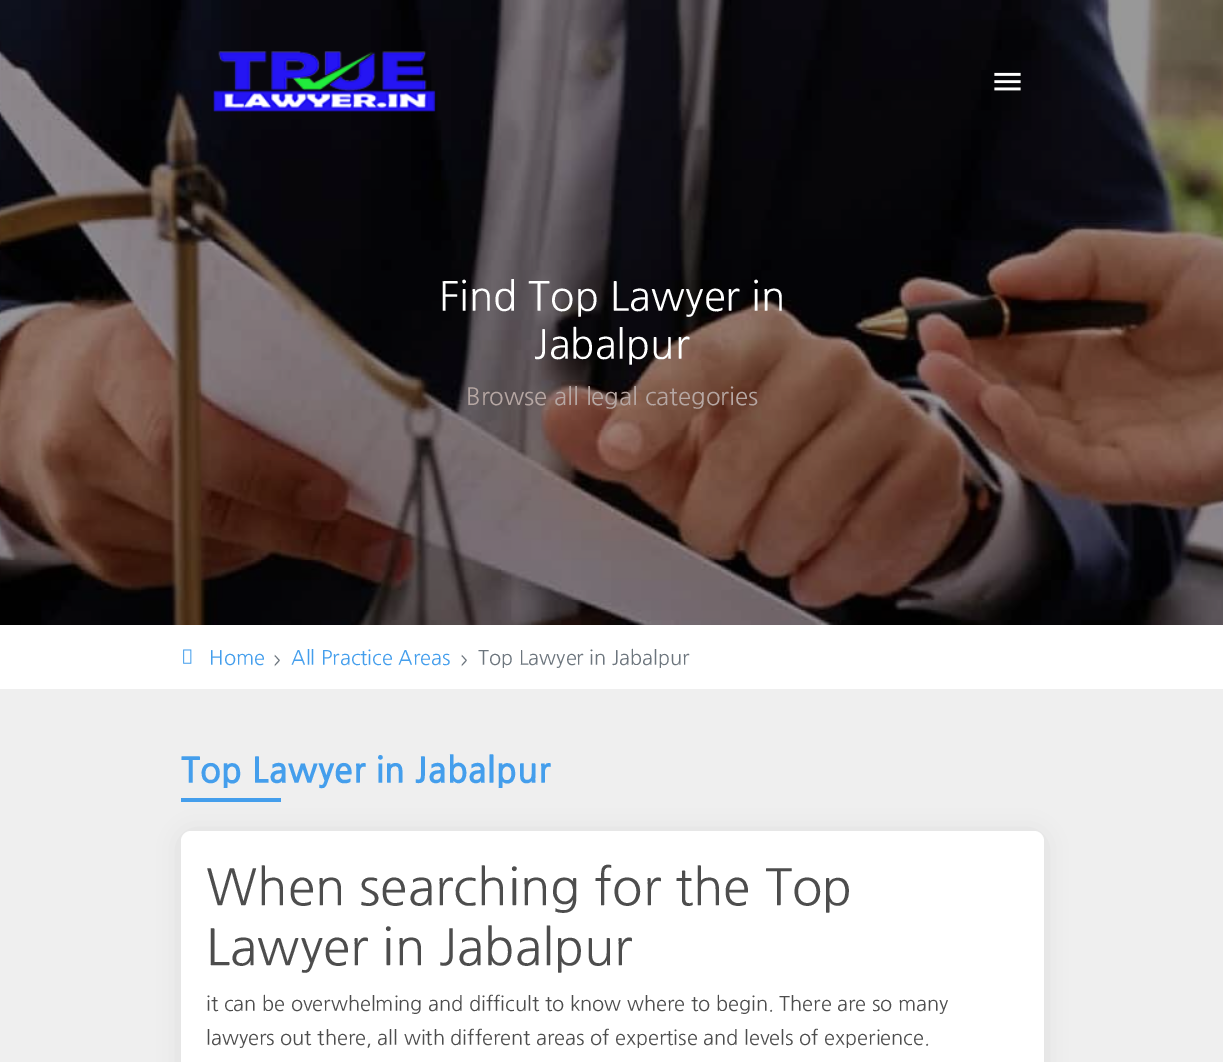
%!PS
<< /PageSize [1223 1062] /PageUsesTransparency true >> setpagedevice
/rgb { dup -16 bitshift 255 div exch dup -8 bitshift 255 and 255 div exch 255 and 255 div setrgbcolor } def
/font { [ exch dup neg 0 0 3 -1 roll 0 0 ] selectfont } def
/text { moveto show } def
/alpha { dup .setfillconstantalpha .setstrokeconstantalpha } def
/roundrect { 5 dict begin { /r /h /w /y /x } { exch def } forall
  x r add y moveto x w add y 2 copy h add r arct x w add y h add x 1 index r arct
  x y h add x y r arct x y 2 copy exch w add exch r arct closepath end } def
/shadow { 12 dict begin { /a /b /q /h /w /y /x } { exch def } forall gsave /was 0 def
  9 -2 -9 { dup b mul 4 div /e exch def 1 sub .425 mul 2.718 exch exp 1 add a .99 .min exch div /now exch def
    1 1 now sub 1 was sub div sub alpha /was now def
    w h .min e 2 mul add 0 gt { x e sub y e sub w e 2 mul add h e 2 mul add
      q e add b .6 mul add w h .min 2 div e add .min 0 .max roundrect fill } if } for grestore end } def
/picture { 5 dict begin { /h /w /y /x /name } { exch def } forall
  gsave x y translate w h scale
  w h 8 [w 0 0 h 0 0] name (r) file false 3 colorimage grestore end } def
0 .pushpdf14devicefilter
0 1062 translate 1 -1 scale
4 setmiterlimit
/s1 { /NanumGothic-Regular 40 font 16#FFFFFF rgb } def
/s2 { /NanumGothic-Regular 24 font 16#B6A7A3 rgb } def
/s3 { /NanumGothic-Regular 20 font 16#449EEC rgb } def
/s4 { /NanumGothic-Bold 12 font 16#6C757D rgb } def
/s5 { /NanumGothic-Regular 20 font 16#6C757D rgb } def
/s6 { /NanumGothic-Bold 35 font 16#449EEC rgb } def
/s7 { /NanumGothic-Regular 50 font 16#4D4D4D rgb } def
/s8 { /NanumGothic-Regular 20 font 16#4D4D4D rgb } def
16#FFFFFF rgb
0 0 1223 1062 rectfill
(pic3.raw) 0 0 1223 625 picture
(pic1.raw) 213 51 223 61 picture
(pic2.raw) 994 72 27 19 picture
s1
(Find Top Lawyer in) 439 309 text
(Jabalpur) 534 357 text
s2
(Browse all legal categories) 466 404 text
(pic4.raw) 183 649 9 15 picture
s3
(Home) 209 664 text
s4
(>) 274 664 text
s3
(All Practice Areas) 291 664 text
s4
(>) 461 664 text
s5
(Top Lawyer in Jabalpur) 478 664 text
16#EFEFEF rgb
0 689 1223 373 rectfill
s6
(Top Lawyer in Jabalpur) 181 781 text
16#000000 rgb
184 836 857 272 8 12.5 0.1 shadow
16#449EEC rgb
181 798 100 4 rectfill
16#FFFFFF rgb
181 831 863 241 10 roundrect fill
s7
(When searching for the Top) 206 903 text
(Lawyer in Jabalpur) 206 963 text
s8
(it can be overwhelming and difficult to know where to begin. There are so many) 206 1010 text
(lawyers out there, all with different areas of expertise and levels of experience.) 206 1044 text
.poppdf14devicefilter showpage
